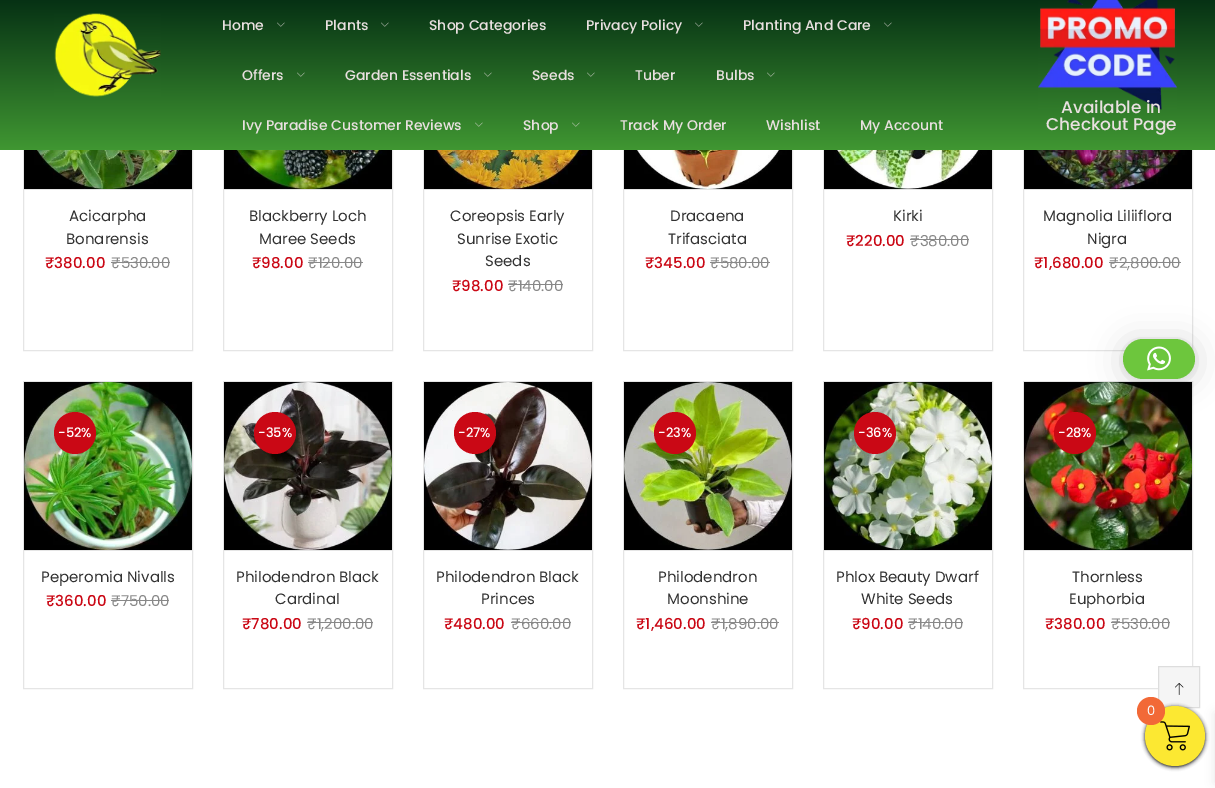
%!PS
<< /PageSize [1215 788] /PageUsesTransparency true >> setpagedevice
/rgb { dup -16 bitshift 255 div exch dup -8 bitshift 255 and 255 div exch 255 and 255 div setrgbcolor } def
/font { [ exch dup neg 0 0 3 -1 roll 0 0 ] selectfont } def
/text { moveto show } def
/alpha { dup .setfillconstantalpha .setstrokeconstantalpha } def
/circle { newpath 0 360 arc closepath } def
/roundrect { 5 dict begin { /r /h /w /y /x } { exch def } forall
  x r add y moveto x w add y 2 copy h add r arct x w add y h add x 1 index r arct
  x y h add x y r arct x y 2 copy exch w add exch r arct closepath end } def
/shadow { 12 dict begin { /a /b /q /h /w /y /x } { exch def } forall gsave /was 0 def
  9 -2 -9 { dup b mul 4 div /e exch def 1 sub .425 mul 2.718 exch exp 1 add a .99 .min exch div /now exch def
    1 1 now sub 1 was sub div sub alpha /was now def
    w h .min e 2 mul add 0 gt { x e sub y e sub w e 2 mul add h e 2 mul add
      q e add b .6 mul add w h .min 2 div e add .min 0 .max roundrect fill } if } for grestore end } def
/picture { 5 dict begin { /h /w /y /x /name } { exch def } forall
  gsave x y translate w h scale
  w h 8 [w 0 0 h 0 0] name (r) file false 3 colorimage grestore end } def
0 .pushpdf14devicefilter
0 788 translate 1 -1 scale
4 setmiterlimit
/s1 { /Poppins-Medium 14 font 16#E9E0E0 rgb } def
/s2 { /Poppins-Medium 17 font 16#E9E0E0 rgb } def
/s3 { /Poppins-Regular 15 font 16#323232 rgb } def
/s4 { /Poppins-Medium 15 font 16#CA0815 rgb } def
/s5 { /Poppins-Regular 15 font 16#888888 rgb } def
/s6 { /Poppins-Medium 13 font 16#FFFFFF rgb } def
/s7 { /Poppins-Regular 13 font 16#F9F9F9 rgb } def
16#FFFFFF rgb
0 0 1215 788 rectfill
16#E5E5E5 rgb
23.5 20.5 169 330 rectstroke
223.5 20.5 169 330 rectstroke
423.5 20.5 169 330 rectstroke
623.5 20.5 169 330 rectstroke
823.5 20.5 169 330 rectstroke
1023.5 20.5 169 330 rectstroke
gsave 0 0 moveto 1215 0 lineto 1215 150 lineto 0 150 lineto closepath clip newpath
<< /ShadingType 2 /ColorSpace /DeviceRGB /Coords [608 0 608 150] /Extend [true true] /Function << /FunctionType 2 /Domain [0 1] /C0 [0.024 0.192 0.078] /C1 [0.251 0.592 0.196] /N 1 >> >> shfill grestore
(pic1.raw) 54 13 107 84 picture
s1
(Home) 222 30 text
(pic2.raw) 277 22 8 5 picture
(Plants) 325 30 text
(pic2.raw) 381 22 8 5 picture
(Shop Categories) 429 30 text
(Privacy Policy) 586 30 text
(pic2.raw) 695 22 8 5 picture
(Planting And Care) 743 30 text
(pic2.raw) 884 22 8 5 picture
(Offers) 242 80 text
(pic3.raw) 297 72 8 5 picture
(Garden Essentials) 345 80 text
(pic3.raw) 484 72 8 5 picture
(Seeds) 532 80 text
(pic3.raw) 587 72 8 5 picture
(Tuber) 635 80 text
(Bulbs) 716 80 text
(pic3.raw) 767 72 8 5 picture
(Ivy Paradise Customer Reviews) 242 130 text
(pic4.raw) 475 122 8 5 picture
(Shop) 523 130 text
(pic4.raw) 572 122 8 5 picture
(Track My Order) 620 130 text
(Wishlist) 766 130 text
(My Account) 860 130 text
(pic5.raw) 1038 0 139 110 picture
s2
(Available in) 1061 113 text
(Checkout Page) 1046 130 text
(pic6.raw) 24 150 168 39 picture
16#E5E5E5 rgb
24 189 168 1 rectfill
s3
(Acicarpha) 69 221 text
(Bonarensis) 66 244 text
s4
(₹380.00) 45 268 text
s5
(₹530.00) 111 268 text
111 262 59 1 rectfill
(pic7.raw) 224 150 168 39 picture
16#E5E5E5 rgb
224 189 168 1 rectfill
s3
(Blackberry Loch) 249 221 text
(Maree Seeds) 259 244 text
s4
(₹98.00) 252 268 text
s5
(₹120.00) 308 268 text
308 262 55 1 rectfill
(pic8.raw) 424 150 168 39 picture
16#E5E5E5 rgb
424 189 168 1 rectfill
s3
(Coreopsis Early) 450 221 text
(Sunrise Exotic) 457 244 text
(Seeds) 485 266 text
s4
(₹98.00) 452 291 text
s5
(₹140.00) 508 291 text
508 284 55 1 rectfill
(pic9.raw) 624 150 168 39 picture
16#E5E5E5 rgb
624 189 168 1 rectfill
s3
(Dracaena) 670 221 text
(Trifasciata) 668 244 text
s4
(₹345.00) 645 268 text
s5
(₹580.00) 710 268 text
710 262 60 1 rectfill
(pic10.raw) 824 150 168 39 picture
16#E5E5E5 rgb
824 189 168 1 rectfill
s3
(Kirki) 893 221 text
s4
(₹220.00) 846 246 text
s5
(₹380.00) 910 246 text
910 239 59 1 rectfill
(pic11.raw) 1024 150 168 39 picture
16#E5E5E5 rgb
1024 189 168 1 rectfill
s3
(Magnolia Liliiflora) 1043 221 text
(Nigra) 1087 244 text
s4
(₹1,680.00) 1034 268 text
s5
(₹2,800.00) 1109 268 text
1109 262 72 1 rectfill
16#E5E5E5 rgb
23.5 381.5 169 307 rectstroke
(pic12.raw) 24 382 168 168 picture
16#CA0815 rgb
75 433 21 circle fill
s6
(-52%) 58 437 text
16#E5E5E5 rgb
24 550 168 1 rectfill
s3
(Peperomia Nivalls) 41 582 text
s4
(₹360.00) 46 606 text
s5
(₹750.00) 111 606 text
111 600 58 1 rectfill
16#E5E5E5 rgb
223.5 381.5 169 307 rectstroke
(pic13.raw) 224 382 168 168 picture
16#CA0815 rgb
275 433 21 circle fill
s6
(-35%) 258 437 text
16#E5E5E5 rgb
224 550 168 1 rectfill
s3
(Philodendron Black) 236 582 text
(Cardinal) 275 604 text
s4
(₹780.00) 242 629 text
s5
(₹1,200.00) 307 629 text
307 622 66 1 rectfill
16#E5E5E5 rgb
423.5 381.5 169 307 rectstroke
(pic14.raw) 424 382 168 168 picture
16#CA0815 rgb
475 433 21 circle fill
s6
(-27%) 458 437 text
16#E5E5E5 rgb
424 550 168 1 rectfill
s3
(Philodendron Black) 436 582 text
(Princes) 481 604 text
s4
(₹480.00) 444 629 text
s5
(₹660.00) 511 629 text
511 622 60 1 rectfill
16#E5E5E5 rgb
623.5 381.5 169 307 rectstroke
(pic15.raw) 624 382 168 168 picture
16#CA0815 rgb
675 433 21 circle fill
s6
(-23%) 658 437 text
16#E5E5E5 rgb
624 550 168 1 rectfill
s3
(Philodendron) 658 582 text
(Moonshine) 667 604 text
s4
(₹1,460.00) 636 629 text
s5
(₹1,890.00) 711 629 text
711 622 68 1 rectfill
16#E5E5E5 rgb
823.5 381.5 169 307 rectstroke
(pic16.raw) 824 382 168 168 picture
16#CA0815 rgb
875 433 21 circle fill
s6
(-36%) 858 437 text
16#E5E5E5 rgb
824 550 168 1 rectfill
s3
(Phlox Beauty Dwarf) 836 582 text
(White Seeds) 861 604 text
s4
(₹90.00) 852 629 text
s5
(₹140.00) 908 629 text
908 622 55 1 rectfill
16#E5E5E5 rgb
1023.5 381.5 169 307 rectstroke
(pic17.raw) 1024 382 168 168 picture
16#CA0815 rgb
1075 433 21 circle fill
s6
(-28%) 1058 437 text
16#E5E5E5 rgb
1024 550 168 1 rectfill
s3
(Thornless) 1072 582 text
(Euphorbia) 1069 604 text
s4
(₹380.00) 1045 629 text
s5
(₹530.00) 1111 629 text
1111 622 59 1 rectfill
16#F5F5F5 rgb
1158.5 666.5 moveto 1199.5 666.5 lineto 1199.5 707.5 lineto 1158.5 707.5 lineto closepath gsave fill grestore
16#DDDDDD rgb
stroke
(pic18.raw) 1175 683 9 12 picture
16#000000 rgb
1123 341 72 40 20 16 0.16 shadow
1123 340 72 40 20 3 0.06 shadow
16#6DC63D rgb
1123 339 72 40 20 roundrect fill
(pic19.raw) 1147 346 24 25 picture
16#000000 rgb
1145 707 60 60 30 2 1 shadow
1215 713 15 70 0 5 0.1 shadow
16#FCE832 rgb
1175 736 30 circle fill
(pic20.raw) 1160 721 30 30 picture
16#F26937 rgb
1151 711 14 circle fill
s7
(0) 1147 715 text
.poppdf14devicefilter showpage
